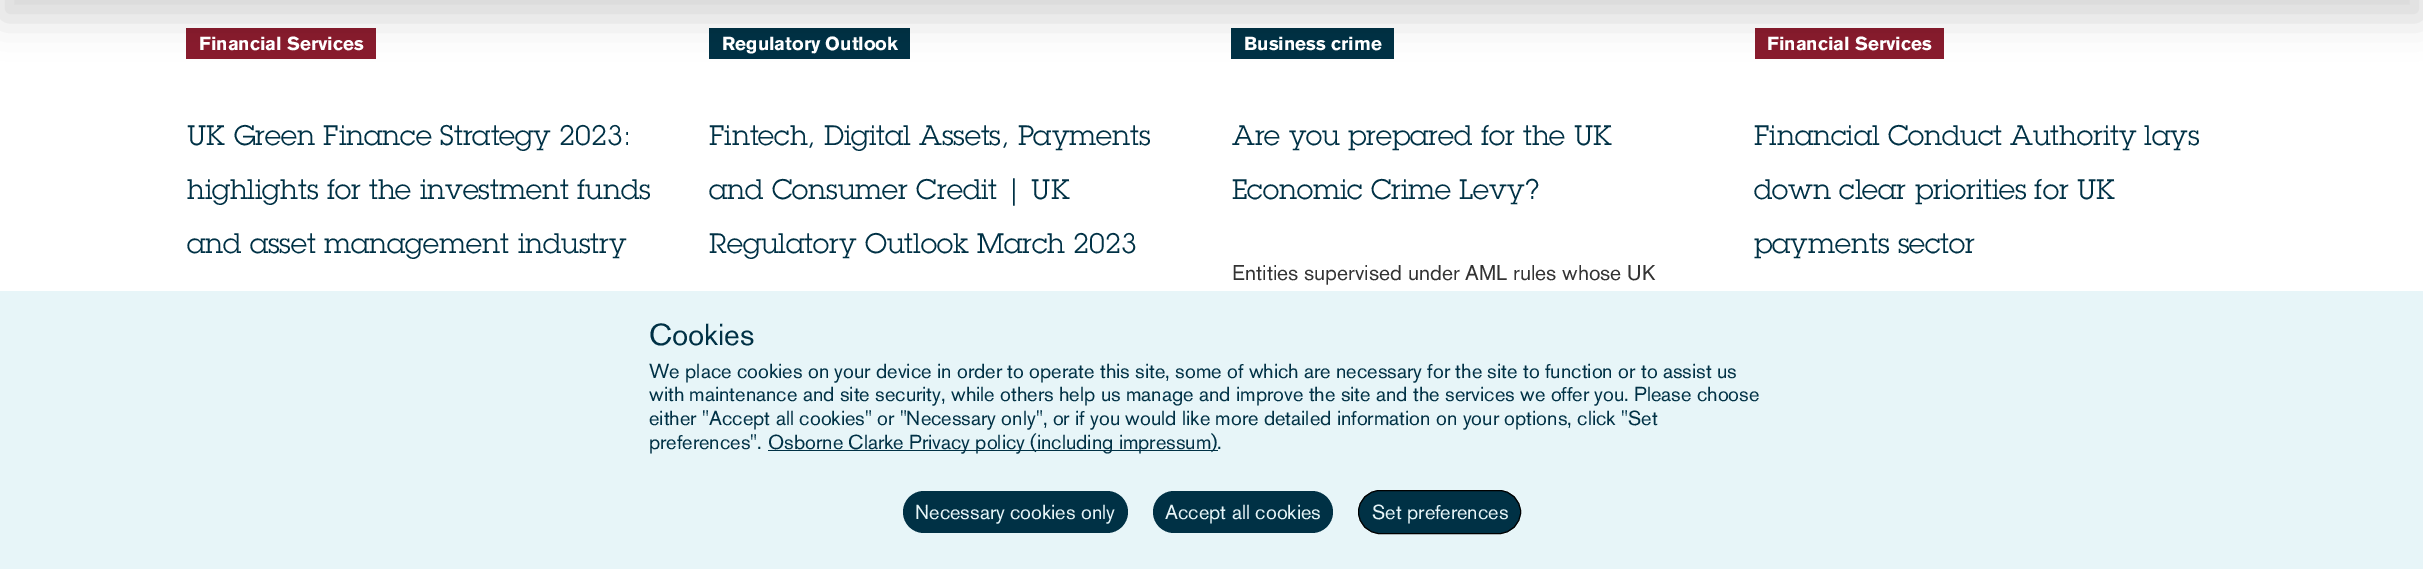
%!PS
<< /PageSize [2423 569] /PageUsesTransparency true >> setpagedevice
/rgb { dup -16 bitshift 255 div exch dup -8 bitshift 255 and 255 div exch 255 and 255 div setrgbcolor } def
/font { [ exch dup neg 0 0 3 -1 roll 0 0 ] selectfont } def
/text { moveto show } def
/alpha { dup .setfillconstantalpha .setstrokeconstantalpha } def
/roundrect { 5 dict begin { /r /h /w /y /x } { exch def } forall
  x r add y moveto x w add y 2 copy h add r arct x w add y h add x 1 index r arct
  x y h add x y r arct x y 2 copy exch w add exch r arct closepath end } def
/shadow { 12 dict begin { /a /b /q /h /w /y /x } { exch def } forall gsave /was 0 def
  9 -2 -9 { dup b mul 4 div /e exch def 1 sub .425 mul 2.718 exch exp 1 add a .99 .min exch div /now exch def
    1 1 now sub 1 was sub div sub alpha /was now def
    w h .min e 2 mul add 0 gt { x e sub y e sub w e 2 mul add h e 2 mul add
      q e add b .6 mul add w h .min 2 div e add .min 0 .max roundrect fill } if } for grestore end } def
0 .pushpdf14devicefilter
0 569 translate 1 -1 scale
4 setmiterlimit
/s1 { /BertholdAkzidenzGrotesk-Bold 18.75 font 16#FFFFFF rgb } def
/s2 { /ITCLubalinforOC-Regular 27.5 font 16#003145 rgb } def
/s3 { /BertholdAkzidenzGrotesk-Regular 21.25 font 16#333333 rgb } def
/s4 { /BertholdAkzidenzGrotesk-Regular 30 font 16#003145 rgb } def
/s5 { /BertholdAkzidenzGrotesk-Regular 20 font 16#003145 rgb } def
/s6 { /BertholdAkzidenzGrotesk-Regular 20 font 16#E7F5F8 rgb } def
16#FFFFFF rgb
0 0 2423 569 rectfill
16#891B2D rgb
186 28 190 31 rectfill
16#003145 rgb
709 28 201 31 rectfill
1231 28 163 31 rectfill
16#891B2D rgb
1755 28 189 31 rectfill
16#000000 rgb
0 -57 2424 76 0 19 0.16 shadow
s1
(Financial Services) 199 50 text
s2
(UK Green Finance Strategy 2023:) 187 145 text
(highlights for the investment funds) 187 199 text
(and asset management industry) 187 253 text
s1
(Regulatory Outlook) 722 50 text
s2
(Fintech, Digital Assets, Payments) 709 145 text
(and Consumer Credit | UK) 709 199 text
(Regulatory Outlook March 2023) 709 253 text
s1
(Business crime) 1244 50 text
s2
(Are you prepared for the UK) 1232 145 text
(Economic Crime Levy?) 1232 199 text
s3
(Entities supervised under AML rules whose UK) 1232 280 text
s1
(Financial Services) 1767 50 text
s2
(Financial Conduct Authority lays) 1754 145 text
(down clear priorities for UK) 1754 199 text
(payments sector) 1754 253 text
16#E7F5F8 rgb
0 291 2423 278 rectfill
s4
(Cookies) 649 345 text
s5
(We place cookies on your device in order to operate this site, some of which are necessary for the site to function or to assist us) 649 378 text
(with maintenance and site security, while others help us manage and improve the site and the services we offer you. Please choose) 649 401 text
(either "Accept all cookies" or "Necessary only", or if you would like more detailed information on your options, click "Set) 649 425 text
(preferences".) 649 449 text
768 450 450 1 rectfill
(Osborne Clarke Privacy policy \(including impressum\)) 768 449 text
(.) 1217 449 text
903 491 225 42 21 roundrect fill
s6
(Necessary cookies only) 915 519 text
16#003145 rgb
1153 491 180 42 21 roundrect fill
s6
(Accept all cookies) 1165 519 text
16#003145 rgb
1358.5 490.5 162 43 21.5 roundrect gsave fill grestore
16#000000 rgb
stroke
s6
(Set preferences) 1372 519 text
.poppdf14devicefilter showpage
